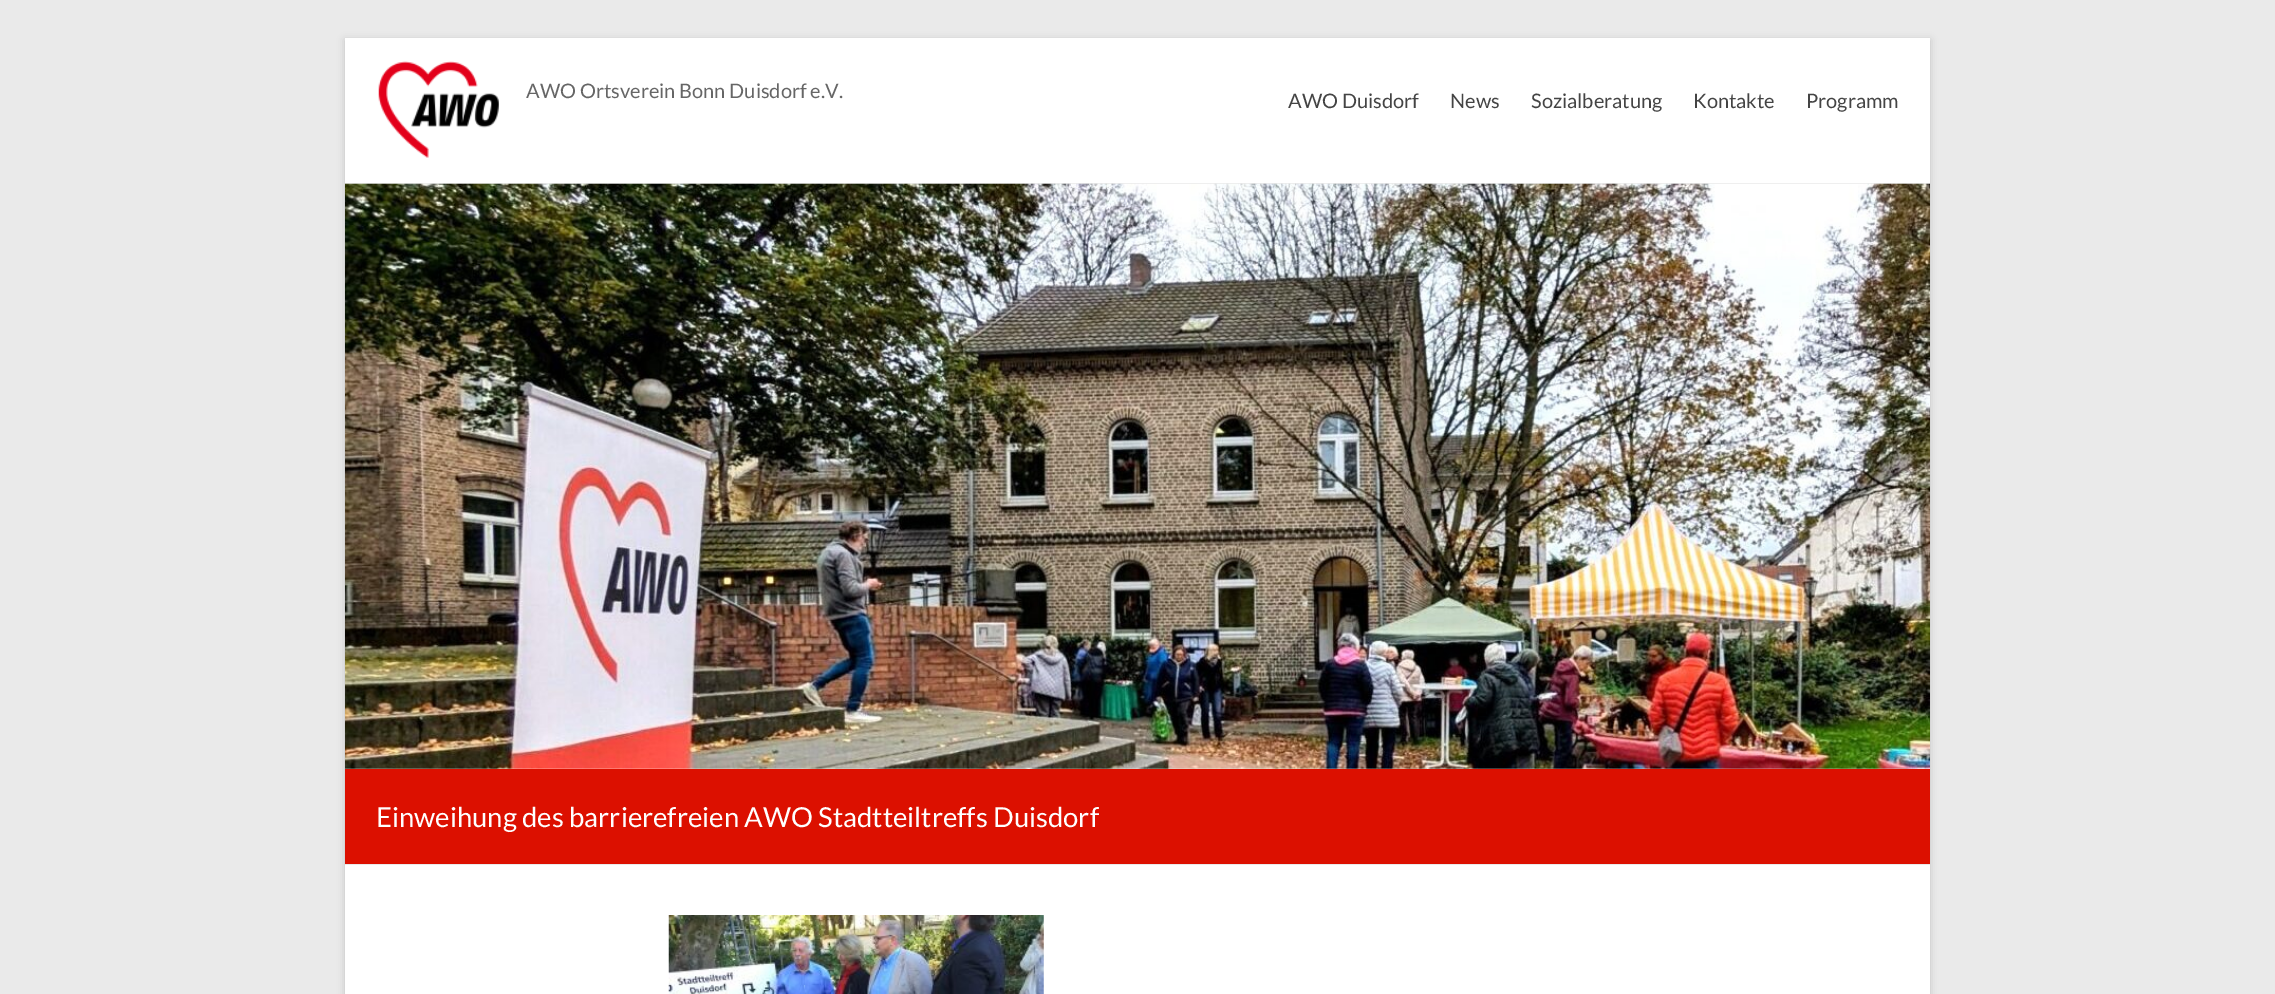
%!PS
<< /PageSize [2275 994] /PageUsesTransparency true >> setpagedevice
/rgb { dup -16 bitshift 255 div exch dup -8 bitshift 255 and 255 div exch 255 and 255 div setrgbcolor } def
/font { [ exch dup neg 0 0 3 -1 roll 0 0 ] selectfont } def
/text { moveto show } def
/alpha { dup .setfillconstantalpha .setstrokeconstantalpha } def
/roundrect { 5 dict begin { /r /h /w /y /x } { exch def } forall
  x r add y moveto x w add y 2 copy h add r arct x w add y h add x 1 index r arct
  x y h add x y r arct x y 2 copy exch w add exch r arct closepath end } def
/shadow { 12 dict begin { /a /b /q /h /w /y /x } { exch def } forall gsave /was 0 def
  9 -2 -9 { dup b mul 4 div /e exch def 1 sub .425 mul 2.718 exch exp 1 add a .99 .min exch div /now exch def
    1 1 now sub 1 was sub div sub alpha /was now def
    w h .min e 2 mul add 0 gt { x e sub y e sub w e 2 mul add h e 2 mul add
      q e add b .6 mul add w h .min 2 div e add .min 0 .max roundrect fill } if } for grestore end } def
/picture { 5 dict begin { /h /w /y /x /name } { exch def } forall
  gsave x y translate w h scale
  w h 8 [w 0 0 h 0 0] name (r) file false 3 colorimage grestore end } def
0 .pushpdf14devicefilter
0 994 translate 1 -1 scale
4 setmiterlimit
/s1 { /Lato-Regular 20 font 16#666666 rgb } def
/s2 { /Lato-Regular 20 font 16#444444 rgb } def
/s3 { /Lato-Regular 27.5 font 16#FFFFFF rgb } def
16#EAEAEA rgb
0 0 2275 994 rectfill
16#646464 rgb
345 40 1585 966 0 4 0.3 shadow
16#FFFFFF rgb
345 38 1585 956 rectfill
16#EAEAEA rgb
345 183 1585 1 rectfill
(pic1.raw) 378 61 121 97 picture
s1
(AWO Ortsverein Bonn Duisdorf e.V.) 526 98 text
s2
(AWO Duisdorf) 1288 108 text
(News) 1450 108 text
(Sozialberatung) 1531 108 text
(Kontakte) 1693 108 text
(Programm) 1806 108 text
(pic2.raw) 345 183 1585 586 picture
16#DC1000 rgb
345 769 1585 95 rectfill
16#EAEAEA rgb
345 864 1585 1 rectfill
s3
(Einweihung des barrierefreien AWO Stadtteiltreffs Duisdorf) 376 827 text
(pic3.raw) 668 915 376 79 picture
.poppdf14devicefilter showpage
